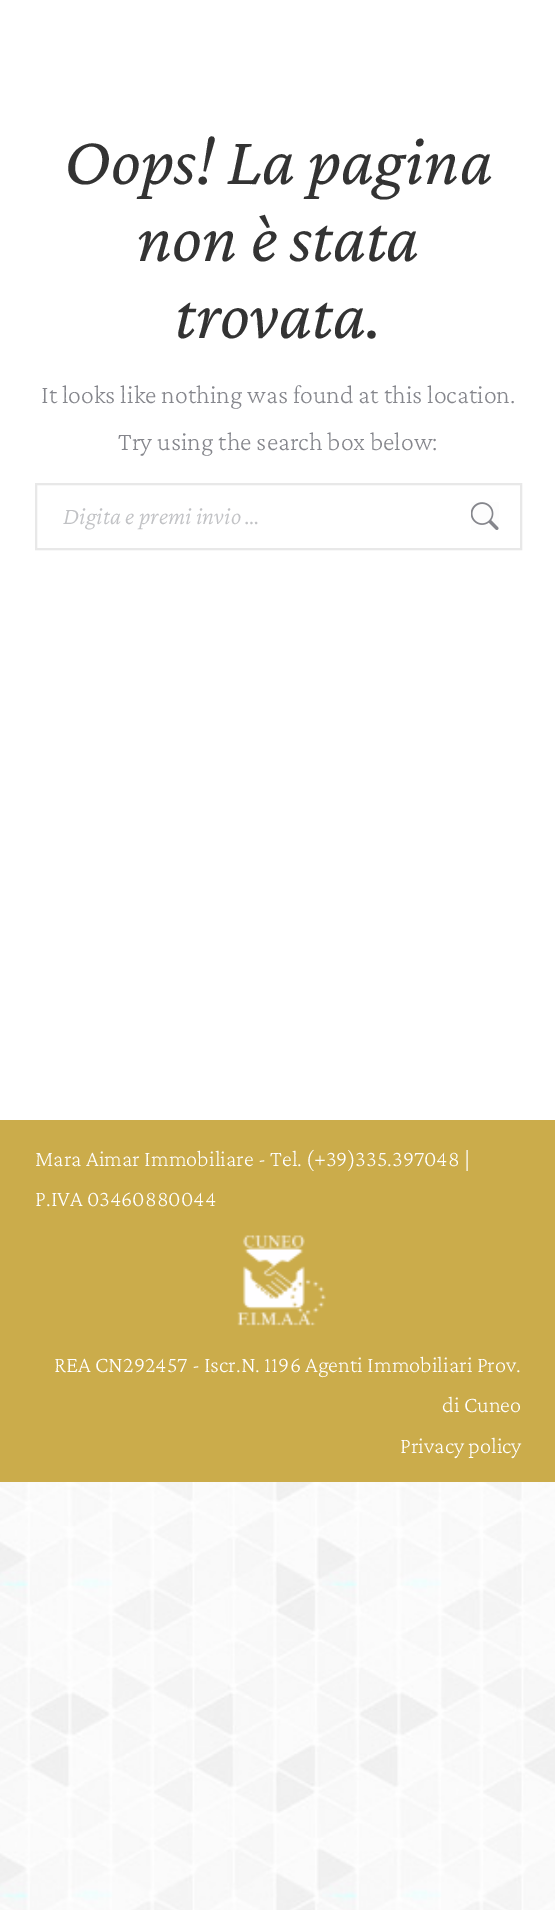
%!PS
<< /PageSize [555 1910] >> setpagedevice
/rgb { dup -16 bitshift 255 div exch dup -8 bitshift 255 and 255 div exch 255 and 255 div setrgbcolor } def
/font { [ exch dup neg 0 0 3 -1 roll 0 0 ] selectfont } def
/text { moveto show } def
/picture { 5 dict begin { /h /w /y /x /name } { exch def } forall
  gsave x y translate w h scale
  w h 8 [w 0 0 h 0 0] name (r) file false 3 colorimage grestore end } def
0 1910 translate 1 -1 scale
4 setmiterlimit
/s1 { /CrimsonPro-Italic 70 font 16#333333 rgb } def
/s2 { /CrimsonPro-ExtraLight 26.25 font 16#85868C rgb } def
/s3 { /CrimsonPro-LightItalic 24.5 font 16#C1C2C5 rgb } def
/s4 { /CrimsonPro-ExtraLight 22.75 font 16#FFFFFF rgb } def
16#FFFFFF rgb
0 0 555 1910 rectfill
(pic1.raw) 0 1482 555 428 picture
s1
(Oops! La pagina) 64 184 text
(non è stata) 137 261 text
(trovata.) 175 338 text
s2
(It looks like nothing was found at this location.) 41 403 text
(Try using the search box below:) 118 450 text
16#E8E8E8 rgb
2 setlinewidth
36 484 485 65 rectstroke
s3
(Digita e premi invio …) 63 524 text
(pic2.raw) 471 502 28 28 picture
16#CBAC4B rgb
0 1120 555 362 rectfill
s4
(Mara Aimar Immobiliare - Tel. \(+39\)335.397048 |) 35 1166 text
(P.IVA 03460880044) 35 1206 text
(pic3.raw) 237 1235 89 91 picture
(REA CN292457 - Iscr.N. 1196 Agenti Immobiliari Prov.) 54 1372 text
(di Cuneo) 442 1412 text
(Privacy policy) 400 1453 text
showpage
